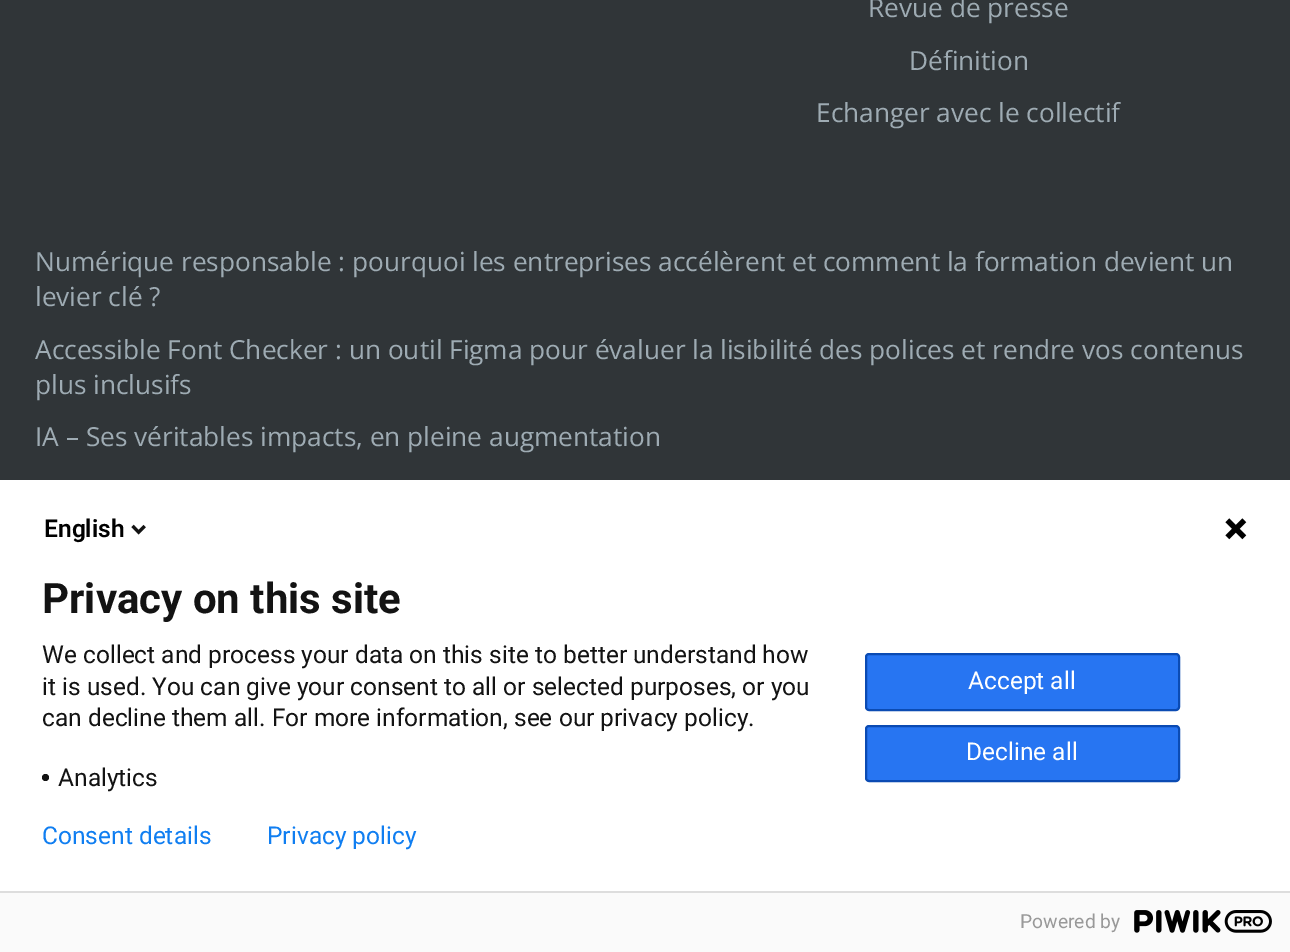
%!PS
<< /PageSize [1290 952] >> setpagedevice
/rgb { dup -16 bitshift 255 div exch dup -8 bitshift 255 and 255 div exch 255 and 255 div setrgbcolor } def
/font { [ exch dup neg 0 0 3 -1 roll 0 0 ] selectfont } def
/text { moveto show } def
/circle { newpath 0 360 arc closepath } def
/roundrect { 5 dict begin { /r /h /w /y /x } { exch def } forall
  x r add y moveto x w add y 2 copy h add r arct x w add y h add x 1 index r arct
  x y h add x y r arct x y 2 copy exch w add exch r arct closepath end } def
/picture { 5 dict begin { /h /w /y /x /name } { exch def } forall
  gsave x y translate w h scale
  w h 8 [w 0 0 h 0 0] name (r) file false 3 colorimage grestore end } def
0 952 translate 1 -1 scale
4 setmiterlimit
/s1 { /OpenSans-Regular 26.25 font 16#9EABB3 rgb } def
/s2 { /Roboto-SemiBold 24.5 font 16#000000 rgb } def
/s3 { /Roboto-Bold 42 font 16#131313 rgb } def
/s4 { /Roboto-Regular 24.5 font 16#131313 rgb } def
/s5 { /Roboto-Regular 24.5 font 16#FFFFFF rgb } def
/s6 { /Roboto-Regular 24.5 font 16#107EF1 rgb } def
/s7 { /Roboto-Regular 19.25 font 16#999999 rgb } def
16#303538 rgb
0 0 1290 952 rectfill
s1
(Revue de presse) 868 17 text
(Définition) 909 70 text
(Echanger avec le collectif) 816 122 text
(Numérique responsable : pourquoi les entreprises accélèrent et comment la formation devient un) 35 271 text
(levier clé ?) 35 306 text
(Accessible Font Checker : un outil Figma pour évaluer la lisibilité des polices et rendre vos contenus) 35 359 text
(plus inclusifs) 35 394 text
(IA – Ses véritables impacts, en pleine augmentation) 35 446 text
16#FFFFFF rgb
0 480 1290 411 rectfill
s2
(English) 44 537 text
(pic1.raw) 131 524 15 11 picture
(pic2.raw) 1225 518 22 22 picture
s3
(Privacy on this site) 42 613 text
s4
(We collect and process your data on this site to better understand how) 42 663 text
(it is used. You can give your consent to all or selected purposes, or you) 42 695 text
(can decline them all. For more information, see our privacy policy.) 42 726 text
45.5 777.5 3.5 circle fill
(Analytics) 58 786 text
16#2775F2 rgb
866 654 313 56 3 roundrect gsave fill grestore
16#0B4BB3 rgb
2 setlinewidth
stroke
s5
(Accept all) 968 689 text
16#2775F2 rgb
866 726 313 55 3 roundrect gsave fill grestore
16#0B4BB3 rgb
stroke
s5
(Decline all) 966 760 text
s6
(Consent details) 42 844 text
(Privacy policy) 267 844 text
16#FAFAFA rgb
0 893 1290 59 rectfill
16#DDDDDD rgb
0 891 1290 2 rectfill
s7
(Powered by) 1020 928 text
(pic3.raw) 1134 910 138 23 picture
showpage
